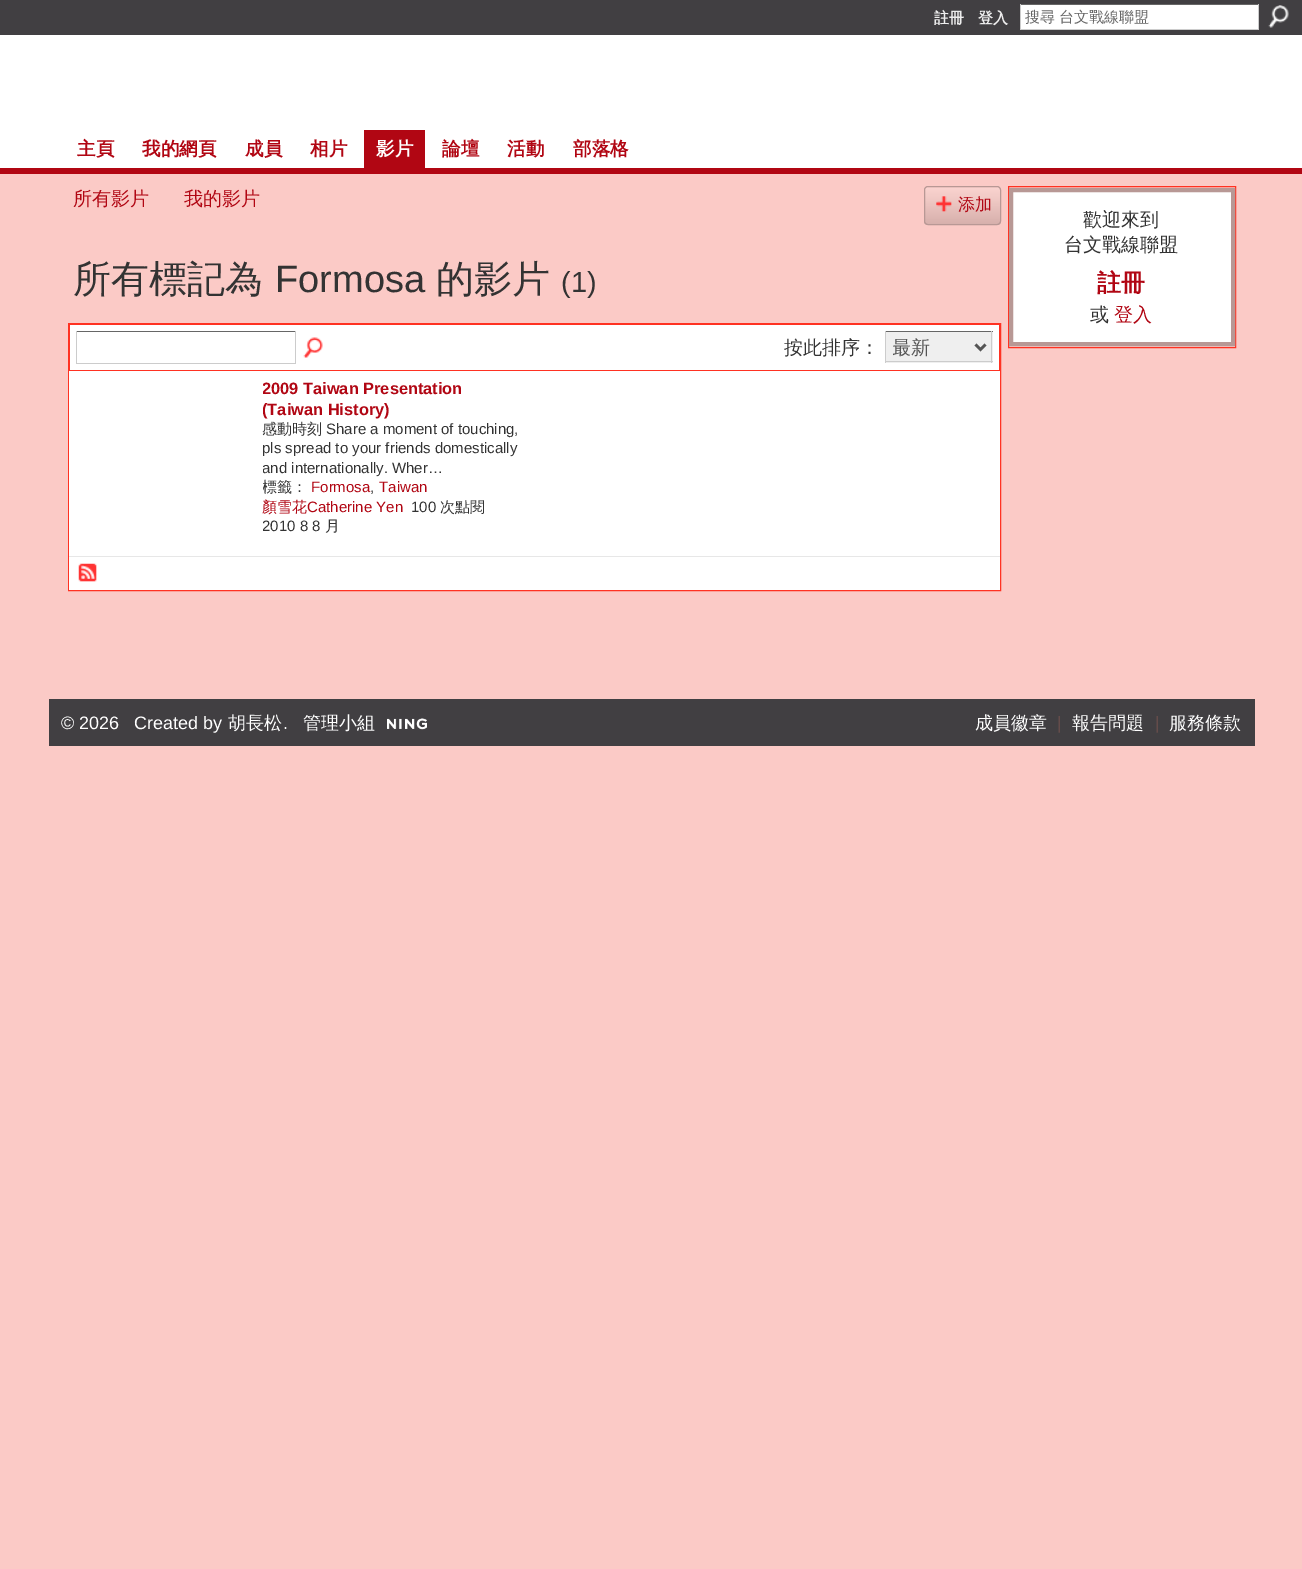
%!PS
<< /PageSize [1302 1569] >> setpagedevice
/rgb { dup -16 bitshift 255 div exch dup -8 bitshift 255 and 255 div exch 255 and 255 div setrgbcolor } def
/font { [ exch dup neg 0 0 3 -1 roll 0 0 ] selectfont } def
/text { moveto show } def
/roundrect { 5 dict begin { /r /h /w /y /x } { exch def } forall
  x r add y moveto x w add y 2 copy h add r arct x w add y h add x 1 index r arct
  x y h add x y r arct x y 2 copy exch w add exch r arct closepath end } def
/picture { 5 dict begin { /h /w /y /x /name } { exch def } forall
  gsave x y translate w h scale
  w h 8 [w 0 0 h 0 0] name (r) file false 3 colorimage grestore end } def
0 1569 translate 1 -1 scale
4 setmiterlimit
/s1 { /WenQuanYiZenHei-Bold 15 font 16#EEEEEE rgb } def
/s2 { /WenQuanYiZenHei-Medium 15 font 16#666666 rgb } def
/s3 { /WenQuanYiZenHei-Bold 18.5 font 16#B10613 rgb } def
/s4 { /WenQuanYiZenHei-Bold 18.5 font 16#FFFFFF rgb } def
/s5 { /WenQuanYiZenHei-Medium 19 font 16#B10613 rgb } def
/s6 { /WenQuanYiZenHei-Medium 17 font 16#B10613 rgb } def
/s7 { /WenQuanYiZenHei-Medium 38 font 16#333333 rgb } def
/s8 { /LiberationSans-Regular 38 font 16#333333 rgb } def
/s9 { /LiberationSans-Regular 29 font 16#333333 rgb } def
/s10 { /WenQuanYiZenHei-Medium 19 font 16#333333 rgb } def
/s11 { /WenQuanYiZenHei-Medium 19 font 16#555555 rgb } def
/s12 { /LiberationSans-Bold 16.4 font 16#B10613 rgb } def
/s13 { /WenQuanYiZenHei-Medium 15 font 16#333333 rgb } def
/s14 { /LiberationSans-Regular 15 font 16#333333 rgb } def
/s15 { /LiberationSans-Regular 15 font 16#B10613 rgb } def
/s16 { /WenQuanYiZenHei-Medium 15 font 16#B10613 rgb } def
/s17 { /WenQuanYiZenHei-Bold 24 font 16#B10613 rgb } def
/s18 { /LiberationSans-Regular 18 font 16#FFFFFF rgb } def
/s19 { /WenQuanYiZenHei-Medium 18 font 16#FFFFFF rgb } def
/s20 { /LiberationSans-Regular 18 font 16#644C4A rgb } def
16#FBCAC6 rgb
0 0 1302 1569 rectfill
16#413F42 rgb
0 0 1302 35 rectfill
s1
(註冊) 934 23 text
(登入) 978 23 text
16#FFFFFF rgb
1021 5 237 24 rectfill
16#666666 rgb
1020 4 239 1 rectfill
16#CCCCCC rgb
1258 4 1 26 rectfill
1020 29 239 1 rectfill
1020 4 1 26 rectfill
s2
(搜尋 台文戰線聯盟) 1025 22 text
(pic1.raw) 1268 5 21 23 picture
16#FFFFFF rgb
0 35 1302 133 rectfill
16#B10613 rgb
0 168 1302 6 rectfill
s3
(主頁) 77 155 text
(我的網頁) 142 155 text
(成員) 245 155 text
(相片) 310 155 text
364 130 61 38 rectfill
s4
(影片) 376 155 text
s3
(論壇) 442 155 text
(活動) 507 155 text
(部落格) 573 155 text
s5
(所有影片) 73 205 text
(我的影片) 184 205 text
(pic2.raw) 924 187 77 38 picture
16#B89895 rgb
924.5 186.5 76 38 3.5 roundrect stroke
(pic3.raw) 936 196 16 16 picture
s6
(添加) 958 210 text
s7
(所有標記為) 73 292 text
s8
(Formosa) 275 292 text
s7
(的影片) 436 292 text
s9
(\(1\)) 561 292 text
16#FF3222 rgb
68.5 323.5 932 267 rectstroke
69.5 324.5 930 46 rectstroke
16#FFFFFF rgb
70 325 929 45 rectfill
16#666666 rgb
76 331 220 1 rectfill
16#CCCCCC rgb
295 331 1 33 rectfill
76 363 220 1 rectfill
76 331 1 33 rectfill
(pic4.raw) 303 337 20 21 picture
s10
(按此排序：) 784 354 text
16#EFEFEF rgb
886 332 107 31 rectfill
16#666666 rgb
885 331 108 1 rectfill
16#CCCCCC rgb
991 331 1 32 rectfill
885 361 108 1 rectfill
885 331 1 32 rectfill
16#555555 rgb
2.5 setlinewidth
975.5 344.5 moveto 980.5 349.5 lineto 985.5 344.5 lineto stroke
gsave
893 335 77 24 rectclip
(最新) 892 354 text
grestore
16#FFFFFF rgb
69 371 931 185 rectfill
gsave
263 378 260 42 rectclip
s12
(2009 Taiwan Presentation) 262 394 text
(\(Taiwan History\)) 262 415 text
grestore
s13
(感動時刻) 262 434 text
s14
(Share a moment of touching,) 326 434 text
gsave
263 420 260 59 rectclip
(pls spread to your friends domestically) 262 453 text
(and internationally.) 262 473 text
grestore
(Wher…) 392 473 text
gsave
263 420 260 118 rectclip
s13
(標籤：) 262 492 text
grestore
s15
(Formosa) 311 492 text
s14
(,) 370 492 text
s15
(Taiwan) 379 492 text
s16
(顏雪花) 262 512 text
s15
(Catherine Yen) 307 512 text
gsave
263 420 260 118 rectclip
s14
(2010 8 8) 262 531 text
grestore
s13
(月) 325 531 text
s14
(100) 411 512 text
s13
(次點閱) 440 512 text
16#FFFFFF rgb
69 557 931 33 rectfill
16#E7E7E7 rgb
69 556 931 1 rectfill
(pic5.raw) 78 563 19 19 picture
16#FF3222 rgb
1 setlinewidth
1008.5 186.5 227 161 rectstroke
16#FFFFFF rgb
1011 190 moveto 1233 190 lineto 1233 344 lineto 1011 344 lineto closepath gsave fill grestore
16#B89895 rgb
4 setlinewidth
stroke
s10
(歡迎來到) 1083 226 text
(台文戰線聯盟) 1064 251 text
s17
(註冊) 1097 291 text
s10
(或) 1090 321 text
s5
(登入) 1114 321 text
16#413F42 rgb
49 699 1206 47 rectfill
s18
(© 2026) 61 729 text
(Created by) 134 729 text
s19
(胡長松) 228 729 text
s18
(.) 283 729 text
s19
(管理小組) 303 729 text
(pic6.raw) 387 718 40 12 picture
(成員徽章) 975 729 text
s20
(|) 1057 729 text
s19
(報告問題) 1072 729 text
s20
(|) 1155 729 text
s19
(服務條款) 1169 729 text
showpage
